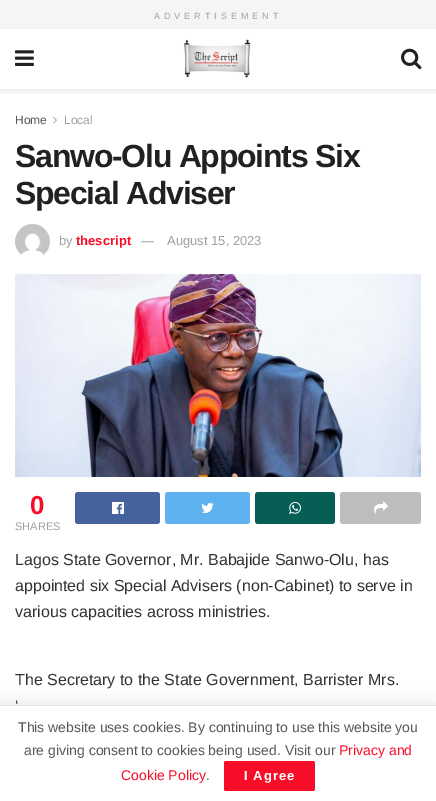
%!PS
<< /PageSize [436 801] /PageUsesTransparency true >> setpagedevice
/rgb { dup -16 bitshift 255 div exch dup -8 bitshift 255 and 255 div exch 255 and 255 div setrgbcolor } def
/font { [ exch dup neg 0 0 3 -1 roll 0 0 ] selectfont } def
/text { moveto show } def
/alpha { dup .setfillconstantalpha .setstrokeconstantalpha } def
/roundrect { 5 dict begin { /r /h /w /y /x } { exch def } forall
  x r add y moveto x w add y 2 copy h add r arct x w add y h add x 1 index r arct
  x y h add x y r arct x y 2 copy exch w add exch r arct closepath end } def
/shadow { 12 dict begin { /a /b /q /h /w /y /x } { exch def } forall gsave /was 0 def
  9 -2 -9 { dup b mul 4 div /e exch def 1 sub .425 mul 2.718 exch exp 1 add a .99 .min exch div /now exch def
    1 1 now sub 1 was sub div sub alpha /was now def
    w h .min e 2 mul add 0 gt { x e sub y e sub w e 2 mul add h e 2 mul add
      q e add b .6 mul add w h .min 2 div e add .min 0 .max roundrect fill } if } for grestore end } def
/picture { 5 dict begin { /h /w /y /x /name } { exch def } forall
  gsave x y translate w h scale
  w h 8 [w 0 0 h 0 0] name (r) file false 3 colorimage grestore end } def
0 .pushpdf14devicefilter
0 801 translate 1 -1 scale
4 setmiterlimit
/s1 { /LiberationSans-Regular 12 font 16#53585C rgb } def
/s2 { /LiberationSans-Regular 12 font 16#A0A0A0 rgb } def
/s3 { /LiberationSans-Regular 13 font 16#A0A0A0 rgb } def
/s4 { /LiberationSans-Bold 13 font 16#F70D28 rgb } def
/s5 { /LiberationSans-Bold 26 font 16#F70D28 rgb } def
/s6 { /LiberationSans-Regular 11 font 16#A0A0A0 rgb } def
/s7 { /LiberationSans-Regular 16 font 16#333333 rgb } def
/s8 { /LiberationSans-Regular 14 font 16#53585C rgb } def
/s9 { /LiberationSans-Regular 14 font 16#F70D28 rgb } def
16#FFFFFF rgb
0 0 436 801 rectfill
gsave
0 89 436 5 rectclip
16#000000 rgb
0 31 436 60 0 3 0.1 shadow
grestore
16#F5F5F5 rgb
0 0 436 29 rectfill
/LiberationSans-Regular 9 font
16#A0A0A0 rgb
154 19 moveto 4 0 (ADVERTISEMENT) ashow
(pic1.raw) 15 50 19 16 picture
(pic2.raw) 183 39 68 39 picture
(pic3.raw) 401 48 21 22 picture
s1
(Home) 15 124 text
(pic4.raw) 53 116 4 8 picture
s2
(Local) 64 124 text
/LiberationSans-Bold 32 font
16#212121 rgb
15 167 moveto -1.25 0 (Sanwo-Olu Appoints Six) ashow
15 204 moveto -1.25 0 (Special Adviser) ashow
(pic5.raw) 15 224 35 31 picture
s3
(by) 59 245 text
s4
(thescript) 76 245 text
s3
(—) 141 245 text
(August 15, 2023) 167 245 text
(pic6.raw) 15 274 406 203 picture
s5
(0) 30 514 text
s6
(SHARES) 15 530 text
16#45629F rgb
75 492 85 32 3 roundrect fill
(pic7.raw) 112 502 12 12 picture
16#5EB2EF rgb
165 492 85 32 3 roundrect fill
(pic8.raw) 201 503 13 10 picture
16#075E54 rgb
255 492 80 32 3 roundrect fill
(pic9.raw) 289 502 12 12 picture
16#BDBDBD rgb
340 492 81 32 3 roundrect fill
(pic10.raw) 374 501 14 13 picture
s7
(Lagos State Governor, Mr. Babajide Sanwo-Olu, has) 15 565 text
(appointed six Special Advisers \(non-Cabinet\) to serve in) 15 591 text
(various capacities across ministries.) 15 617 text
(The Secretary to the State Government, Barrister Mrs.) 15 685 text
(‘) 15 711 text
16#000000 rgb
0 708 436 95 0 10 0.15 shadow
0 706 436 95 0 0.5 0.2 shadow
16#FFFFFF rgb
0 706 436 95 rectfill
s8
(This website uses cookies. By continuing to use this website you) 18 732 text
(are giving consent to cookies being used. Visit our) 24 755 text
s9
(Privacy and) 339 755 text
(Cookie Policy) 121 780 text
s8
(.) 206 780 text
16#F70D28 rgb
224 761 91 30 2 roundrect fill
/LiberationSans-Bold 13 font
16#FFFFFF rgb
244 780 moveto 1 0 (I Agree) ashow
.poppdf14devicefilter showpage
